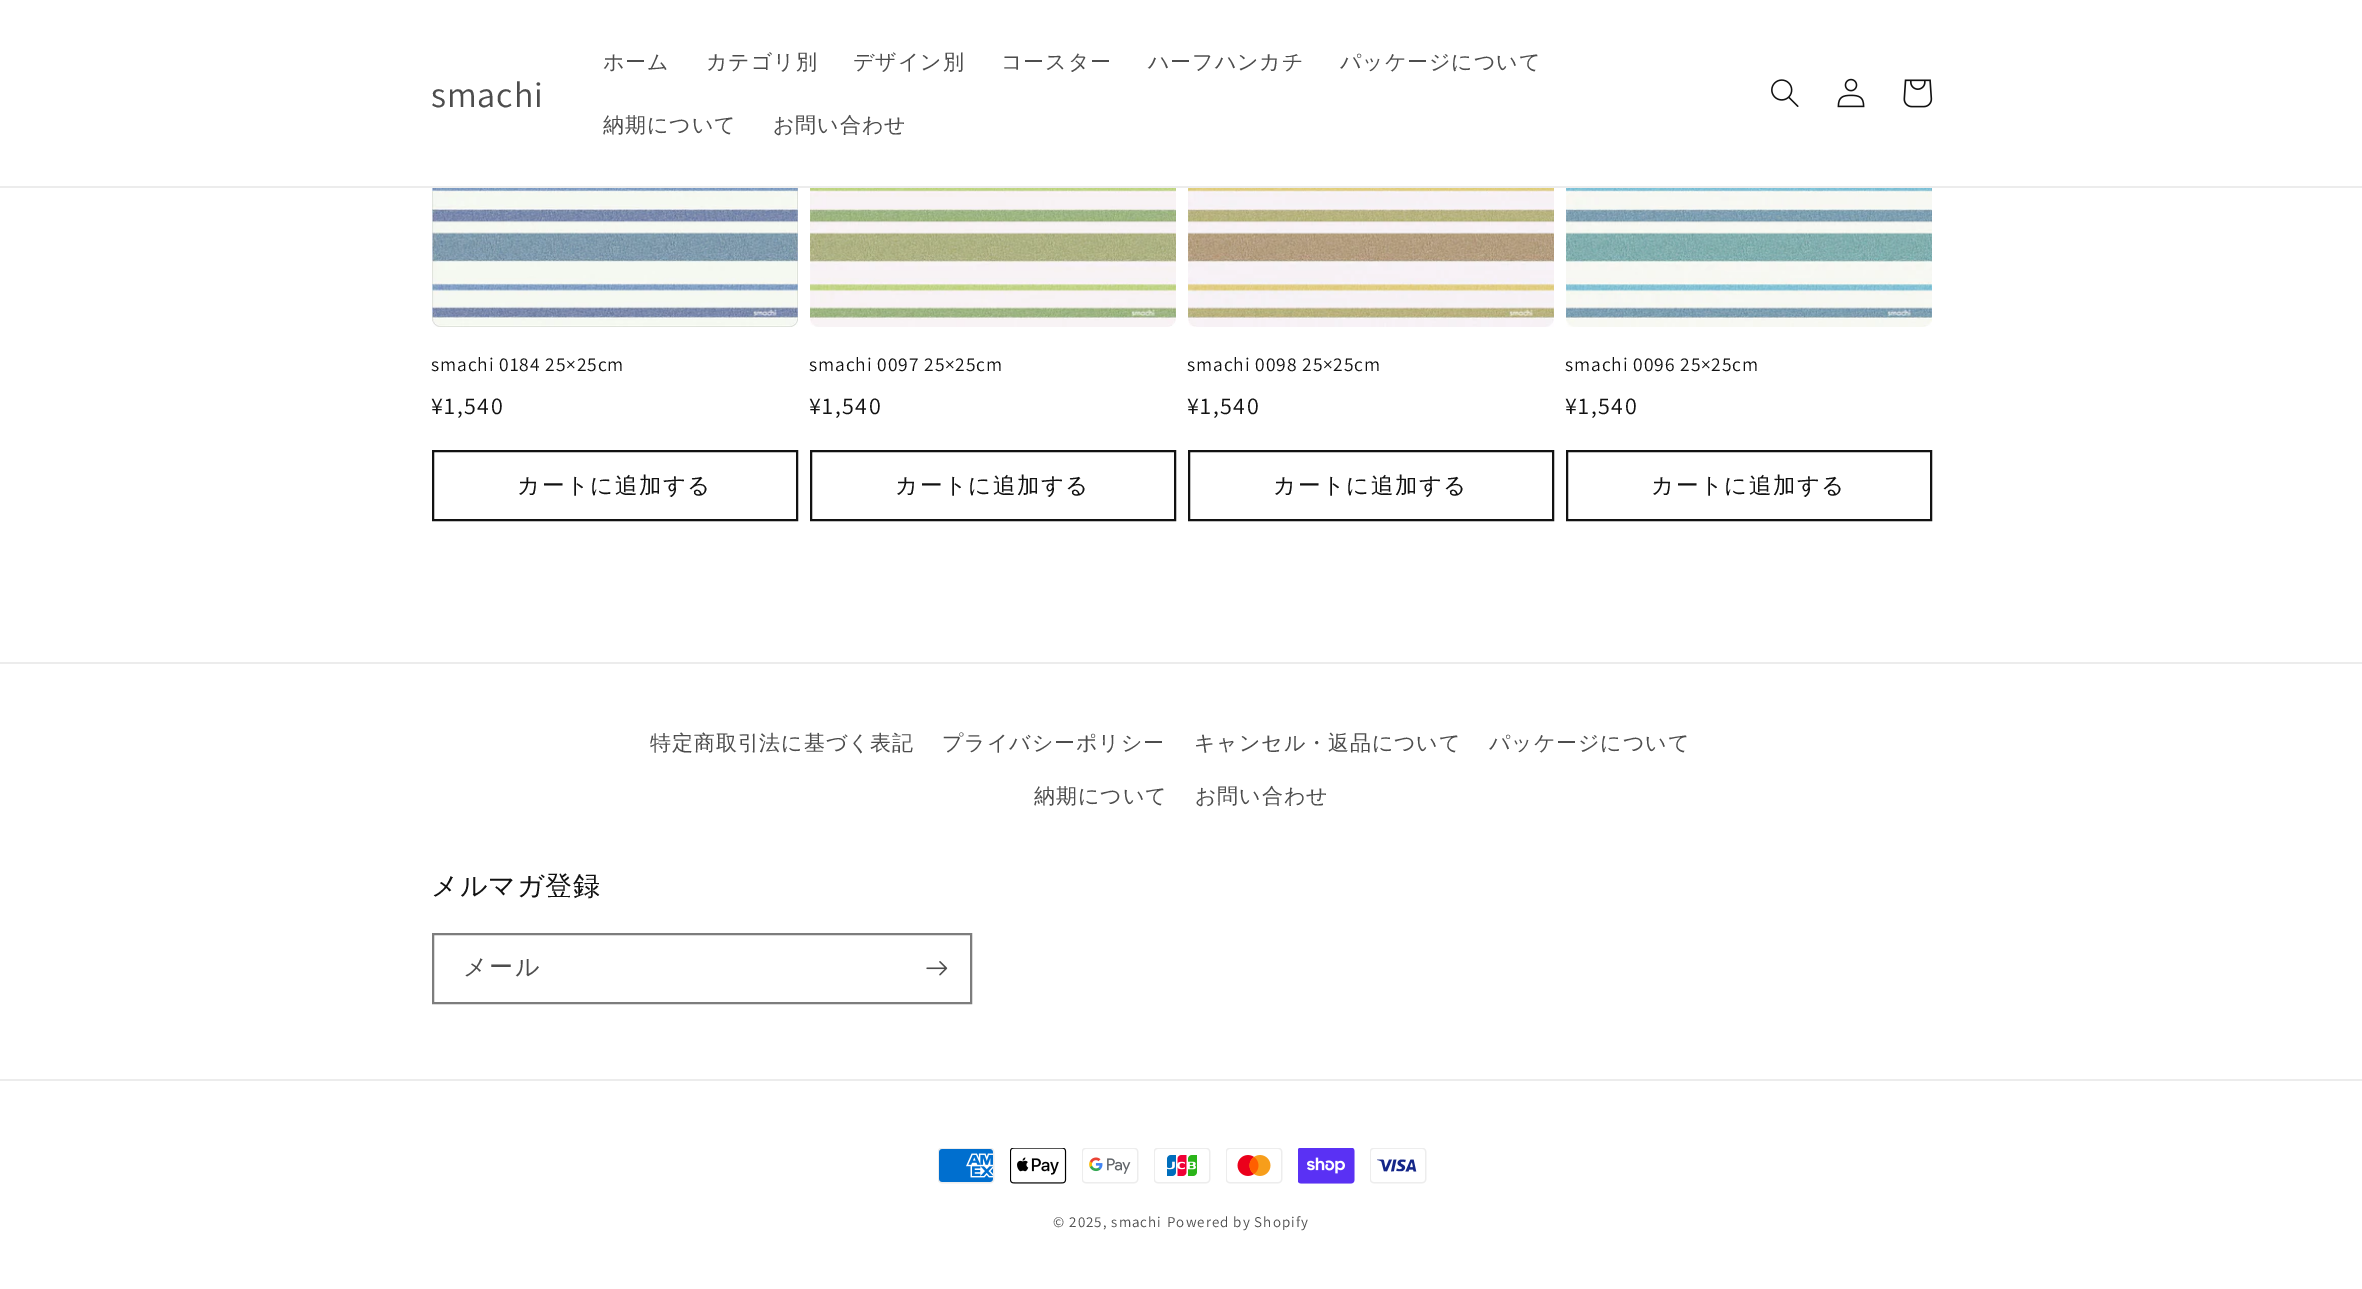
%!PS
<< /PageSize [2362 1289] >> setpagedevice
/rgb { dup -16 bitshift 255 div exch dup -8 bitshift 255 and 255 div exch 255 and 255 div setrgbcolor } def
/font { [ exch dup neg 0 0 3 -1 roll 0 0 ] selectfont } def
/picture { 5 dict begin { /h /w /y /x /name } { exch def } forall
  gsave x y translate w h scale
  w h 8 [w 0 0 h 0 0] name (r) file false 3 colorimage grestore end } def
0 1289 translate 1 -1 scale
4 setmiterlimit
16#FFFFFF rgb
0 0 2362 1289 rectfill
16#ECECEC rgb
0 186 2362 2 rectfill
/Assistant-Regular 36 font
16#4D4D4D rgb
431 107 moveto 0.9 0 (smachi) ashow
/WenQuanYiZenHei-Medium 21 font
603 69 moveto 0.9 0 (ホーム) ashow
706 69 moveto 0.9 0 (カテゴリ別) ashow
853 69 moveto 0.9 0 (デザイン別) ashow
1001 69 moveto 0.9 0 (コースター) ashow
1148 69 moveto 0.9 0 (ハーフハンカチ) ashow
1340 69 moveto 0.9 0 (パッケージについて) ashow
603 132 moveto 0.9 0 (納期について) ashow
773 132 moveto 0.9 0 (お問い合わせ) ashow
(pic1.raw) 1771 79 28 28 picture
(pic2.raw) 1837 78 28 30 picture
(pic3.raw) 1903 79 30 29 picture
(pic4.raw) 432 188 366 139 picture
/Assistant-Regular 19.5 font
16#121212 rgb
431 371 moveto 0.9 0 (smachi 0184 25×25cm) ashow
/Assistant-Regular 24 font
431 414 moveto 1.5 0 (¥1,540) ashow
2 setlinewidth
433 451 364 69 rectstroke
/WenQuanYiZenHei-Medium 22.5 font
517 493 moveto 1.5 0 (カートに追加する) ashow
(pic5.raw) 810 188 366 139 picture
/Assistant-Regular 19.5 font
809 371 moveto 0.9 0 (smachi 0097 25×25cm) ashow
/Assistant-Regular 24 font
809 414 moveto 1.5 0 (¥1,540) ashow
811 451 364 69 rectstroke
/WenQuanYiZenHei-Medium 22.5 font
895 493 moveto 1.5 0 (カートに追加する) ashow
(pic6.raw) 1188 188 366 139 picture
/Assistant-Regular 19.5 font
1187 371 moveto 0.9 0 (smachi 0098 25×25cm) ashow
/Assistant-Regular 24 font
1187 414 moveto 1.5 0 (¥1,540) ashow
1189 451 364 69 rectstroke
/WenQuanYiZenHei-Medium 22.5 font
1273 493 moveto 1.5 0 (カートに追加する) ashow
(pic7.raw) 1566 188 366 139 picture
/Assistant-Regular 19.5 font
1565 371 moveto 0.9 0 (smachi 0096 25×25cm) ashow
/Assistant-Regular 24 font
1565 414 moveto 1.5 0 (¥1,540) ashow
1567 451 364 69 rectstroke
/WenQuanYiZenHei-Medium 22.5 font
1651 493 moveto 1.5 0 (カートに追加する) ashow
16#ECECEC rgb
0 662 2362 2 rectfill
/WenQuanYiZenHei-Medium 21 font
16#4D4D4D rgb
650 750 moveto 0.9 0 (特定商取引法に基づく表記) ashow
942 750 moveto 0.9 0 (プライバシーポリシー) ashow
1194 750 moveto 0.9 0 (キャンセル・返品について) ashow
1489 750 moveto 0.9 0 (パッケージについて) ashow
1034 803 moveto 0.9 0 (納期について) ashow
1195 803 moveto 0.9 0 (お問い合わせ) ashow
/WenQuanYiZenHei-Medium 27 font
16#121212 rgb
431 895 moveto 0.9 0 (メルマガ登録) ashow
16#7D7D7D rgb
433 934 538 69 rectstroke
/WenQuanYiZenHei-Medium 24 font
16#4D4D4D rgb
463 975 moveto 1.5 0 (メール) ashow
(pic8.raw) 926 961 22 15 picture
16#ECECEC rgb
0 1079 2362 2 rectfill
(pic9.raw) 938 1148 57 36 picture
(pic10.raw) 1010 1148 57 36 picture
(pic11.raw) 1082 1148 57 36 picture
(pic12.raw) 1154 1148 57 36 picture
(pic13.raw) 1226 1148 57 36 picture
(pic14.raw) 1298 1148 57 36 picture
(pic15.raw) 1370 1148 57 36 picture
/Assistant-Regular 15 font
16#4D4D4D rgb
1053 1227 moveto 1 0 (© 2025, smachi) ashow
1167 1227 moveto 1 0 (Powered by Shopify) ashow
showpage
